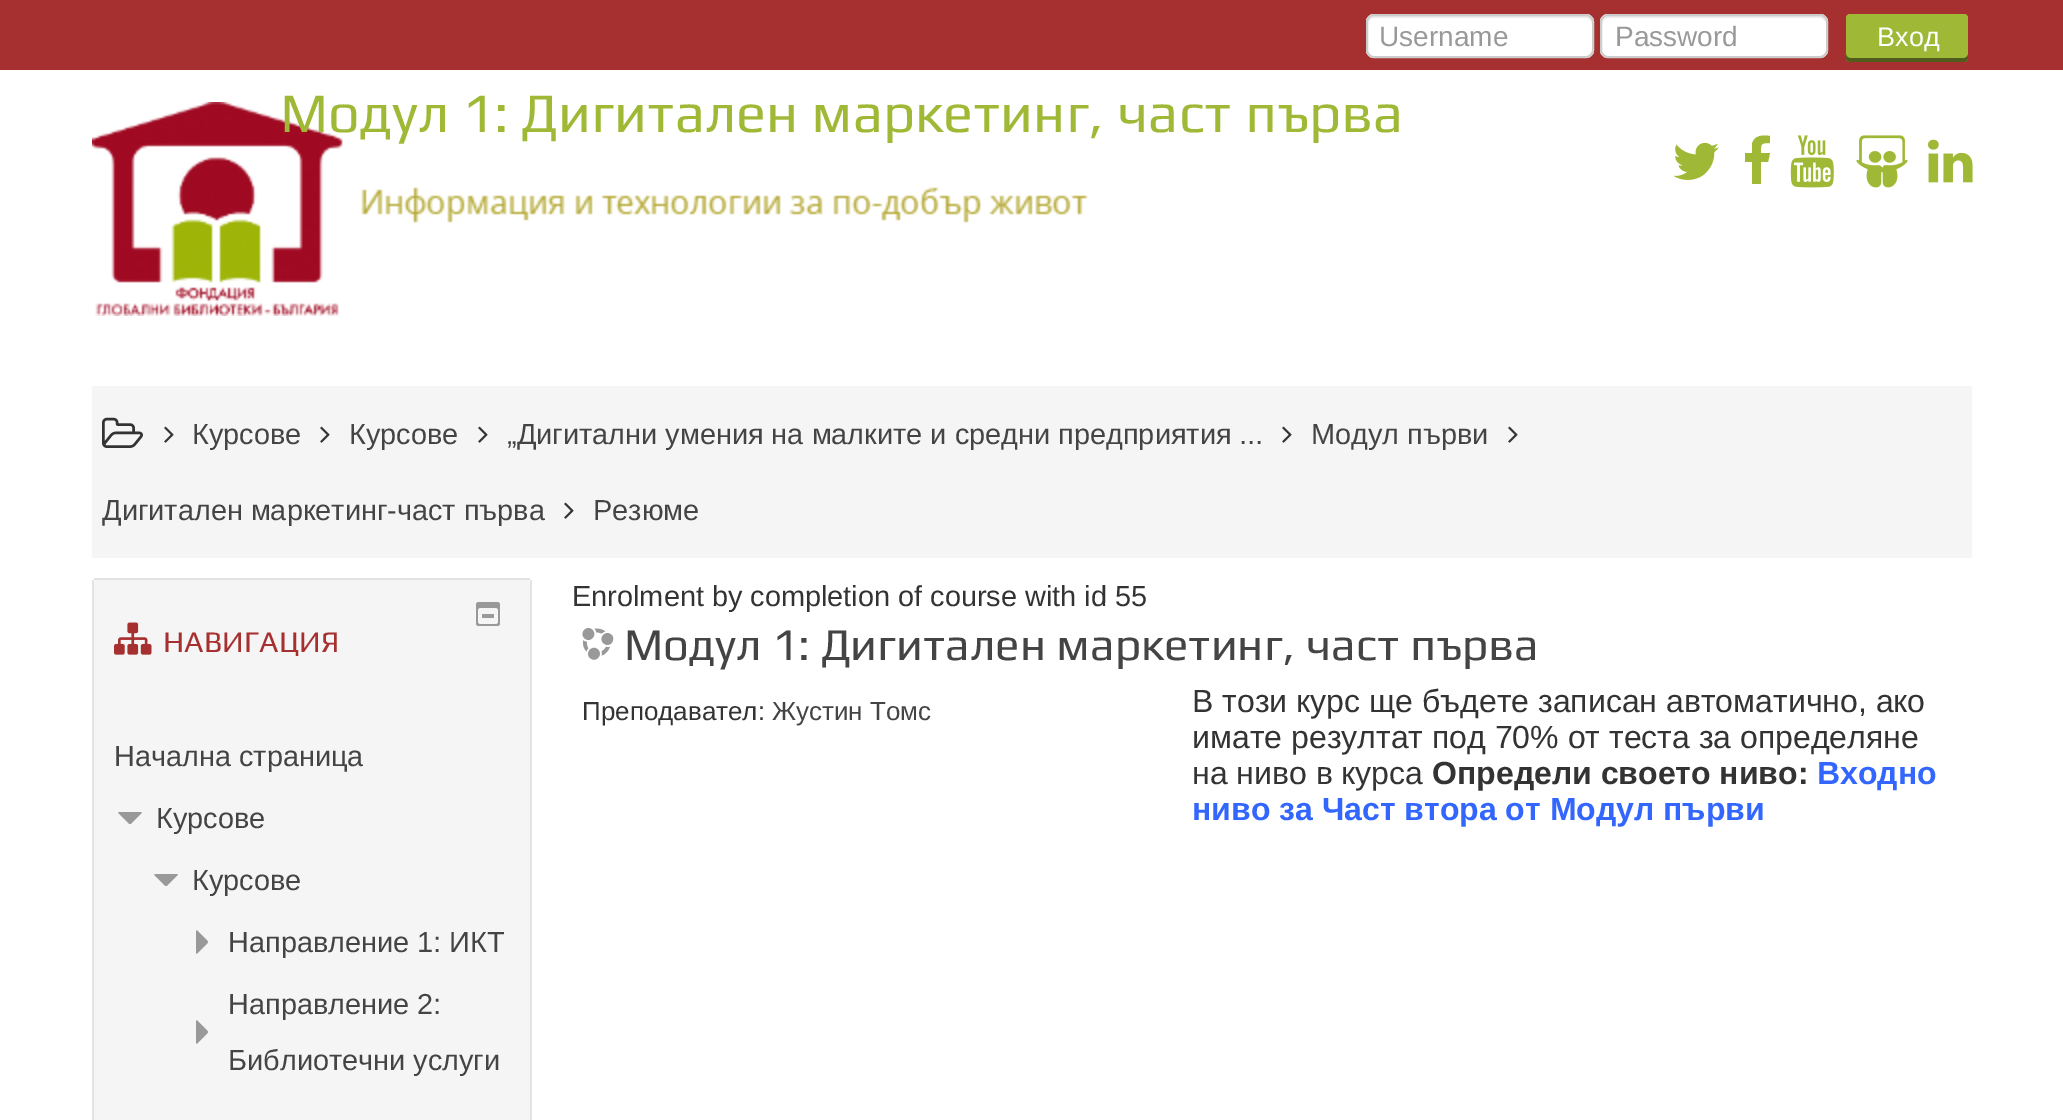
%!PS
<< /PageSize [2063 1120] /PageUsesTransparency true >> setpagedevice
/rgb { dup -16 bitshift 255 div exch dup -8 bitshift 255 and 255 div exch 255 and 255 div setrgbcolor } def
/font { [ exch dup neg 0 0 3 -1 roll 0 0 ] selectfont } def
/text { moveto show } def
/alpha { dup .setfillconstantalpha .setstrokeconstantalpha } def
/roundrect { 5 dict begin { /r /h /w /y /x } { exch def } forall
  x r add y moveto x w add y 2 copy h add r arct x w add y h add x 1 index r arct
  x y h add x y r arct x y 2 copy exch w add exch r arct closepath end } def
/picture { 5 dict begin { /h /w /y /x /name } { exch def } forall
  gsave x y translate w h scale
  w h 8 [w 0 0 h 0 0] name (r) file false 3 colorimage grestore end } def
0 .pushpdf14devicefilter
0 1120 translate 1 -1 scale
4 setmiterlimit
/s1 { /LiberationSans-Regular 28 font 16#999999 rgb } def
/s2 { /LiberationSans-Regular 27 font 16#FFFFFF rgb } def
/s3 { /Play-Regular 56 font 16#9FB936 rgb } def
/s4 { /LiberationSans-Regular 28.9 font 16#444444 rgb } def
/s5 { /Play-Regular 30 font 16#A63030 rgb } def
/s6 { /LiberationSans-Regular 28.9 font 16#333333 rgb } def
/s7 { /Play-Regular 45.6 font 16#444444 rgb } def
/s8 { /LiberationSans-Regular 26 font 16#333333 rgb } def
/s9 { /LiberationSans-Regular 26 font 16#444444 rgb } def
/s10 { /LiberationSans-Regular 32 font 16#333333 rgb } def
/s11 { /LiberationSans-Bold 32 font 16#333333 rgb } def
/s12 { /LiberationSans-Bold 32 font 16#3366FF rgb } def
16#FFFFFF rgb
0 0 2063 1120 rectfill
16#A63030 rgb
0 0 2063 70 rectfill
16#FFFFFF rgb
1366 14 228 44 8 roundrect fill
16#ECECEC rgb
1374 18 moveto 1586 18 lineto 1589 18 1592 21 1592 24 curveto 1592 22 lineto 1592 19 1589 16 1586 16 curveto 1374 16 lineto 1371 16 1368 19 1368 22 curveto 1368 24 lineto 1368 21 1371 18 1374 18 curveto closepath fill
16#CCCCCC rgb
2 setlinewidth
1367 15 226 42 7 roundrect stroke
s1
(Username) 1379 46 text
16#FFFFFF rgb
1600 14 228 44 8 roundrect fill
16#ECECEC rgb
1608 18 moveto 1820 18 lineto 1823 18 1826 21 1826 24 curveto 1826 22 lineto 1826 19 1823 16 1820 16 curveto 1608 16 lineto 1605 16 1602 19 1602 22 curveto 1602 24 lineto 1602 21 1605 18 1608 18 curveto closepath fill
16#CCCCCC rgb
1601 15 226 42 7 roundrect stroke
s1
(Password) 1615 46 text
16#9FB936 rgb
1846 14 122 48 4 roundrect fill
0.5 alpha
16#000000 rgb
1846 54 moveto 1846 58 lineto 1846 60 1848 62 1850 62 curveto 1964 62 lineto 1966 62 1968 60 1968 58 curveto 1968 54 lineto 1968 56 1966 58 1964 58 curveto 1850 58 lineto 1848 58 1846 56 1846 54 curveto closepath fill
1 alpha
s2
(Вход) 1877 46 text
(pic1.raw) 92 102 997 214 picture
s3
(Модул 1: Дигитален маркетинг, част първа) 280 132 text
(pic2.raw) 1673 142 46 38 picture
1770 136 moveto 1770 143 lineto 1760 143 1761 144 1761 153 curveto 1770 153 lineto 1768 162 lineto 1761 162 lineto 1761 184 lineto 1752 184 lineto 1752 162 lineto 1745 162 lineto 1745 153 lineto 1752 153 lineto 1752 144 lineto 1754 135 1763 135 1770 136 curveto closepath fill
(pic3.raw) 1790 135 44 53 picture
(pic4.raw) 1856 135 52 53 picture
(pic5.raw) 1928 139 45 44 picture
16#F5F5F5 rgb
92 386 1880 172 rectfill
(pic6.raw) 102 417 41 31 picture
(pic7.raw) 164 426 10 17 picture
s4
(Курсове) 192 444 text
(pic7.raw) 320 426 10 17 picture
(Курсове) 349 444 text
(pic7.raw) 478 426 10 17 picture
(„Дигитални умения на малките и средни предприятия ...) 507 444 text
(pic7.raw) 1282 426 10 17 picture
(Модул първи) 1311 444 text
(pic7.raw) 1508 426 10 17 picture
(Дигитален маркетинг-част първа) 102 520 text
(pic7.raw) 564 502 10 17 picture
(Резюме) 593 520 text
16#F5F5F5 rgb
96 580 moveto 528 580 lineto 529 580 530 581 530 582 curveto 530 702 lineto 94 702 lineto 94 582 lineto 94 581 95 580 96 580 curveto closepath fill
16#E3E3E3 rgb
94 578 436 2 rectfill
530 580 2 540 rectfill
92 580 2 540 rectfill
(pic8.raw) 476 602 24 24 picture
(pic9.raw) 114 622 38 33 picture
s5
(НАВИГАЦИЯ) 163 652 text
16#F5F5F5 rgb
94 702 436 418 rectfill
s4
(Начална страница) 114 766 text
(pic10.raw) 118 812 24 12 picture
(Курсове) 156 828 text
(pic10.raw) 154 874 24 12 picture
(Курсове) 192 890 text
(pic11.raw) 196 930 12 24 picture
(Направление 1: ИКТ) 228 952 text
(pic11.raw) 196 1020 12 24 picture
(Направление 2:) 228 1014 text
(Библиотечни услуги) 228 1070 text
s6
(Enrolment by completion of course with id 55) 572 606 text
(pic12.raw) 582 628 32 32 picture
s7
(Модул 1: Дигитален маркетинг, част първа) 624 660 text
s8
(Преподавател:) 582 720 text
s9
(Жустин Томс) 772 720 text
s10
(В този курс ще бъдете записан автоматично, ако) 1192 712 text
(имате резултат под 70% от теста за определяне) 1192 748 text
(на ниво в курса) 1192 784 text
s11
(Определи своето ниво:) 1432 784 text
s12
(Входно) 1817 784 text
(ниво за Част втора от Модул първи) 1192 820 text
.poppdf14devicefilter showpage
